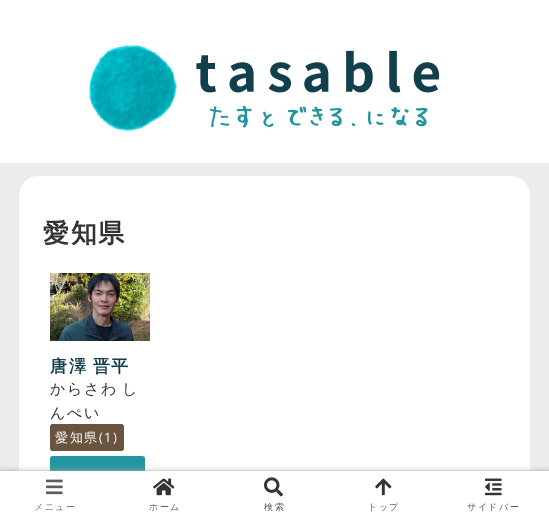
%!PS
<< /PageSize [549 521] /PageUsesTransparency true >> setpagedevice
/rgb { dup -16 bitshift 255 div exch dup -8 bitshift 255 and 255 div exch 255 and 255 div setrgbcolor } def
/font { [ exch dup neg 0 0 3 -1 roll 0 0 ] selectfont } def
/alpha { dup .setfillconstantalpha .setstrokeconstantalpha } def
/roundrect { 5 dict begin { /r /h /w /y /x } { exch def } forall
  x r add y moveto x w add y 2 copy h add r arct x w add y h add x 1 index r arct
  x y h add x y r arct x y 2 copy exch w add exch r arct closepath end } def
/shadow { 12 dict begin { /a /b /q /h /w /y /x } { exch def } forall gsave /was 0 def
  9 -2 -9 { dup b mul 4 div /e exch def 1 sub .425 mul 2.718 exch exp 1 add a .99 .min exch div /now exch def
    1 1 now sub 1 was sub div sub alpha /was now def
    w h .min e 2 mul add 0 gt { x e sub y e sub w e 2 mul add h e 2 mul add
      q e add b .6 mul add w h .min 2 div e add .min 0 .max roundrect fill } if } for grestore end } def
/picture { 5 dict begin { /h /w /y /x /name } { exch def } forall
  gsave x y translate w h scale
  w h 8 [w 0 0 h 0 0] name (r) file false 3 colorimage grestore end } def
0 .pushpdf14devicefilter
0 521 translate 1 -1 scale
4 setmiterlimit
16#EDECEA rgb
0 0 549 521 rectfill
16#FFFFFF rgb
0 0 549 163 rectfill
(pic1.raw) 89 45 351 87 picture
19 176 511 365 20 roundrect fill
/WenQuanYiZenHei-Bold 26 font
16#333333 rgb
43 242 moveto 1.5 0 (愛知県) ashow
(pic2.raw) 50 273 100 68 picture
/WenQuanYiZenHei-Bold 17 font
16#133F4C rgb
50 372 moveto -1 0 32 1.5 0 (唐澤 晋平) awidthshow
/WenQuanYiZenHei-Medium 15 font
16#333333 rgb
50 394 moveto -1 0 32 1.5 0 (からさわ し) awidthshow
50 418 moveto 1.5 0 (んぺい) ashow
16#69543F rgb
50 424 74 27 3 roundrect fill
/WenQuanYiZenHei-Medium 13 font
16#FFFFFF rgb
55 442 moveto 1.5 0 (愛知県) ashow
/OpenSans-Regular 13 font
99 442 moveto 1.5 0 (\(1\)) ashow
16#2295A0 rgb
50 456 95 48 3 roundrect fill
16#A9A9A9 rgb
0 471 549 50 0 2.5 1 shadow
16#FFFFFF rgb
0 471 549 50 rectfill
(pic3.raw) 46 479 17 16 picture
/WenQuanYiZenHei-Medium 9 font
16#7C7C7C rgb
34 510 moveto 1.5 0 (メニュー) ashow
(pic4.raw) 153 478 22 18 picture
16#5C5C5C rgb
149 510 moveto 1.5 0 (ホーム) ashow
(pic5.raw) 264 477 19 20 picture
264 510 moveto 1.5 0 (検索) ashow
(pic6.raw) 375 478 17 18 picture
368 510 moveto 1.5 0 (トップ) ashow
(pic7.raw) 485 478 17 18 picture
467 510 moveto 1.5 0 (サイドバー) ashow
.poppdf14devicefilter showpage
